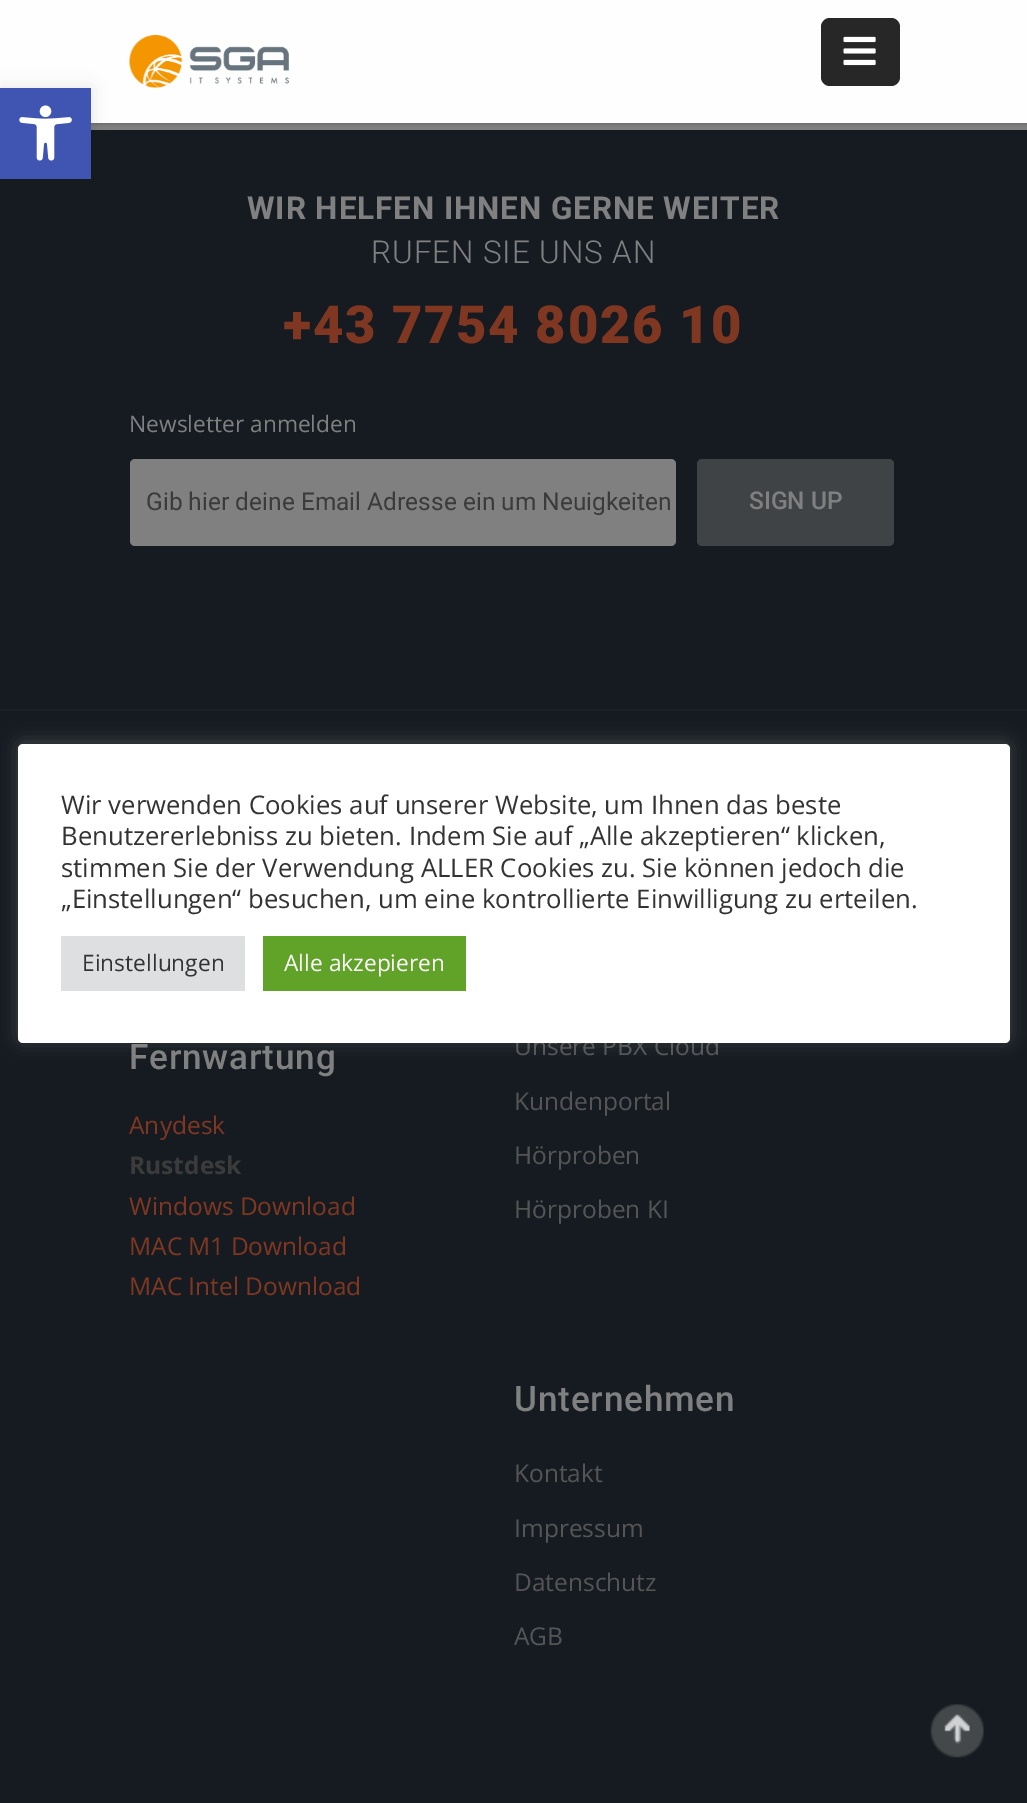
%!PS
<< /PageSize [1027 1803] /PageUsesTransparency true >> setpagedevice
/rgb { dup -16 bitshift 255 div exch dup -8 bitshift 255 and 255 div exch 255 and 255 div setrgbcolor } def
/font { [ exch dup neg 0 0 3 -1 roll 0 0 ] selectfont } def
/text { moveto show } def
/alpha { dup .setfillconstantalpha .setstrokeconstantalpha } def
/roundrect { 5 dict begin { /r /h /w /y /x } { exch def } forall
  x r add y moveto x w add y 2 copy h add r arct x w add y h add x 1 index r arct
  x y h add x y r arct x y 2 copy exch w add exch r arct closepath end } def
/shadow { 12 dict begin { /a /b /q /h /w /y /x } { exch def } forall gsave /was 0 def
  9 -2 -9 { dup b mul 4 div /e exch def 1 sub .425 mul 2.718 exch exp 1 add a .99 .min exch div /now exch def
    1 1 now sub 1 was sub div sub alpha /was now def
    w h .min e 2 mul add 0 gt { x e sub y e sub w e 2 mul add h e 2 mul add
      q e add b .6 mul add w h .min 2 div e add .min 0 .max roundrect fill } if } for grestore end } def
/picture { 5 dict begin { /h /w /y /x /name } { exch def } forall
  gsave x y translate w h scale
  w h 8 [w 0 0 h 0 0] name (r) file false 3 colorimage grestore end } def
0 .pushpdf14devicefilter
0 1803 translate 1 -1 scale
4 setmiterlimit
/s1 { /OpenSans-Regular 22.75 font 16#808080 rgb } def
/s2 { /Roboto-Regular 24.5 font 16#3B3B3B rgb } def
/s3 { /Roboto-Medium 24.5 font 16#808080 rgb } def
/s4 { /OpenSans-Regular 24.5 font 16#803721 rgb } def
/s5 { /OpenSans-Bold 24.5 font 16#3B3B3B rgb } def
/s6 { /OpenSans-Regular 24.5 font 16#555555 rgb } def
/s7 { /OpenSans-Regular 25.7 font 16#333333 rgb } def
/s8 { /OpenSans-Regular 22.75 font 16#333333 rgb } def
/s9 { /OpenSans-Regular 22.75 font 16#FFFFFF rgb } def
16#808080 rgb
0 0 1027 1803 rectfill
16#151B20 rgb
0 130 1027 579 rectfill
gsave
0 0 moveto 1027 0 lineto 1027 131 lineto 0 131 lineto closepath 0 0 moveto 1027 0 lineto 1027 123 lineto 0 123 lineto closepath eoclip newpath
16#000000 rgb
0 2 1027 122 0 2 0.2 shadow
grestore
0.99 alpha
16#FFFFFF rgb
0 0 1027 123 rectfill
1 alpha
16#000000 rgb
0 88 91 91 0 9 0.1 shadow
16#4054B2 rgb
0 88 91 91 rectfill
(pic1.raw) 19 105 53 56 picture
(pic2.raw) 129 35 160 53 picture
16#272727 rgb
821 18 79 68 9 roundrect fill
(pic3.raw) 843 36 33 30 picture
16#1A2227 rgb
0 709 1027 2 rectfill
/Roboto-Bold 31.5 font
16#808080 rgb
247 219 moveto 0.9 0 (WIR HELFEN IHNEN GERNE WEITER) ashow
/Roboto-Light 31.5 font
371 263 moveto 0.9 0 (RUFEN SIE UNS AN) ashow
/Roboto-Black 52.5 font
16#803721 rgb
283 343 moveto 1.75 0 (+43 7754 8026 10) ashow
s1
(Newsletter anmelden) 129 432 text
130 459 546 87 5 roundrect fill
s2
(Gib hier deine Email Adresse ein um Neuigkeiten) 146 510 text
16#404346 rgb
697 459 197 87 5 roundrect fill
s3
(SIGN UP) 749 509 text
16#151B20 rgb
0 711 1027 1092 rectfill
/Roboto-Medium 35 font
16#808080 rgb
129 1069 moveto 0.9 0 (Fernwartung) ashow
s4
(Anydesk) 129 1134 text
s5
(Rustdesk) 129 1174 text
s4
(Windows Download) 129 1215 text
(MAC M1 Download) 129 1255 text
(MAC Intel Download) 129 1295 text
s6
(Unsere PBX Cloud) 514 1055 text
(Kundenportal) 514 1110 text
(Hörproben) 514 1164 text
(Hörproben KI) 514 1218 text
/Roboto-Medium 35 font
16#808080 rgb
514 1411 moveto 0.9 0 (Unternehmen) ashow
s6
(Kontakt) 514 1482 text
(Impressum) 514 1537 text
(Datenschutz) 514 1591 text
(AGB) 514 1645 text
16#ACABAB rgb
18 742 992 299 5 9 0.3 shadow
16#FFFFFF rgb
18 744 992 299 5 roundrect fill
s7
(Wir verwenden Cookies auf unserer Website, um Ihnen das beste) 61 814 text
(Benutzererlebniss zu bieten. Indem Sie auf „Alle akzeptieren“ klicken,) 61 845 text
(stimmen Sie der Verwendung ALLER Cookies zu. Sie können jedoch die) 61 877 text
(„Einstellungen“ besuchen, um eine kontrollierte Einwilligung zu erteilen.) 61 908 text
16#DEDFE0 rgb
61 936 184 55 rectfill
s8
(Einstellungen) 82 971 text
16#61A229 rgb
263 936 203 55 rectfill
s9
(Alle akzepieren) 284 971 text
(pic4.raw) 930 1704 54 54 picture
.poppdf14devicefilter showpage
